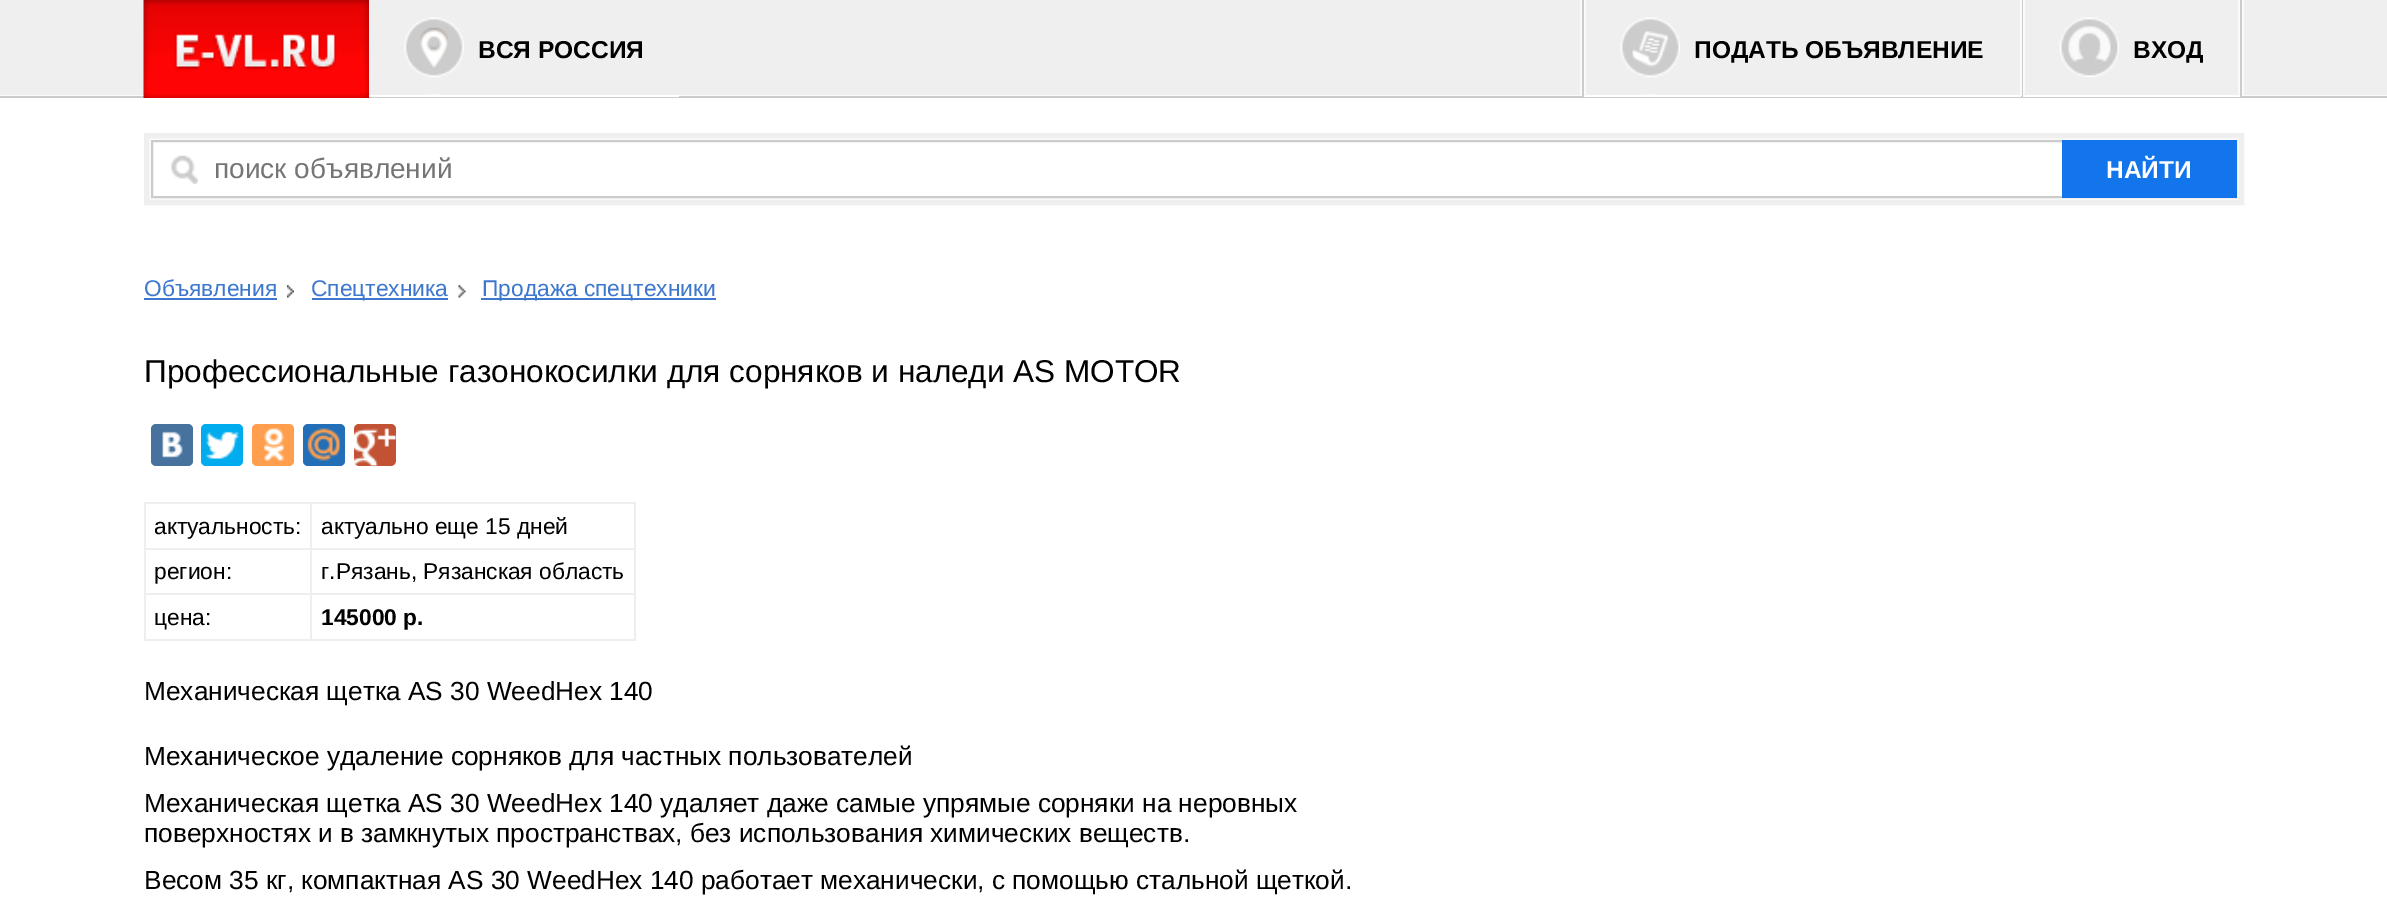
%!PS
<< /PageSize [2387 902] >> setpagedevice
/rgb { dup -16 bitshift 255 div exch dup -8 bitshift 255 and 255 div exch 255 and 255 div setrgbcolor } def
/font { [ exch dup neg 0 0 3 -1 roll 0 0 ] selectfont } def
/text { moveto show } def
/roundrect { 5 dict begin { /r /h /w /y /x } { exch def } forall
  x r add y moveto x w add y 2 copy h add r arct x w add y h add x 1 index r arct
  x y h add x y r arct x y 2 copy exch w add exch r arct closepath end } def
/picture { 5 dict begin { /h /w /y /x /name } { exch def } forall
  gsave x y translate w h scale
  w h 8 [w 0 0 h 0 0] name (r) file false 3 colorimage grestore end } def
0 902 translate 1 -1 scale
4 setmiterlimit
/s1 { /LiberationSans-Bold 24.5 font 16#000000 rgb } def
/s2 { /LiberationSans-Regular 28 font 16#757575 rgb } def
/s3 { /LiberationSans-Bold 24.5 font 16#FFFFFF rgb } def
/s4 { /LiberationSans-Regular 22.75 font 16#3D77CE rgb } def
/s5 { /LiberationSans-Regular 31.5 font 16#000000 rgb } def
/s6 { /LiberationSans-Regular 22.75 font 16#000000 rgb } def
/s7 { /LiberationSans-Bold 22.75 font 16#000000 rgb } def
/s8 { /LiberationSans-Regular 26.25 font 16#000000 rgb } def
16#FFFFFF rgb
0 0 2387 902 rectfill
16#EFEFEF rgb
0 0 2387 95 rectfill
16#FAFAFA rgb
0 95 2387 1 rectfill
16#CCCCCC rgb
0 96 2387 2 rectfill
(pic1.raw) 143 0 227 98 picture
16#EFEFEF rgb
369 0 1 95 rectfill
(pic2.raw) 404 17 60 78 picture
16#FFFFFF rgb
369 95 310 2 rectfill
s1
(ВСЯ РОССИЯ) 478 58 text
16#CCCCCC rgb
1582 0 660 96 rectfill
16#FAFAFA rgb
2242 0 2 96 rectfill
1580 0 2 96 rectfill
16#EFEFEF rgb
1586 0 434 95 rectfill
(pic3.raw) 1620 17 60 78 picture
16#FAFAFA rgb
2020 0 2 96 rectfill
16#FFFFFF rgb
1584 95 437 2 rectfill
16#FAFAFA rgb
1584 0 2 96 rectfill
s1
(ПОДАТЬ ОБЪЯВЛЕНИЕ) 1694 58 text
16#EFEFEF rgb
2025 0 213 95 rectfill
(pic4.raw) 2059 17 60 60 picture
16#FAFAFA rgb
2238 0 2 96 rectfill
16#FFFFFF rgb
2023 95 217 2 rectfill
16#FAFAFA rgb
2023 0 2 96 rectfill
s1
(ВХОД) 2133 58 text
16#FAFAFA rgb
146.5 135.5 moveto 2241.5 135.5 lineto 2241.5 202.5 lineto 146.5 202.5 lineto closepath gsave fill grestore
16#EFEFEF rgb
5 setlinewidth
stroke
16#FFFFFF rgb
153 142 1909 54 rectfill
(pic5.raw) 171 155 27 29 picture
16#CCCCCC rgb
2 setlinewidth
152 141 2084 56 rectstroke
s2
(поиск объявлений) 214 178 text
16#1375EC rgb
2062 140 175 58 rectfill
s3
(НАЙТИ) 2106 178 text
s4
(Объявления) 144 296 text
144 298 133 2 rectfill
(pic6.raw) 287 285 7 13 picture
312 298 136 2 rectfill
(Спецтехника) 311 296 text
(pic7.raw) 458 285 8 13 picture
481 298 235 2 rectfill
(Продажа спецтехники) 482 296 text
s5
(Профессиональные газонокосилки для сорняков и наледи AS MOTOR) 144 382 text
16#48729E rgb
151 424 42 42 5 roundrect fill
(pic8.raw) 162 431 21 27 picture
16#00ACED rgb
201 424 42 42 5 roundrect fill
(pic9.raw) 206 431 33 28 picture
16#FF9F4D rgb
252 424 42 42 5 roundrect fill
(pic10.raw) 263 428 21 33 picture
16#226EB7 rgb
303 424 42 42 5 roundrect fill
(pic11.raw) 307 428 33 33 picture
16#C25234 rgb
354 424 42 42 5 roundrect fill
(pic12.raw) 354 428 42 38 picture
16#EEEEEE rgb
310 502 325 2 rectfill
310 548 325 2 rectfill
310 593 325 2 rectfill
634 593 2 48 rectfill
310 639 325 2 rectfill
310 593 2 48 rectfill
144 593 168 2 rectfill
310 548 2 47 rectfill
144 548 168 2 rectfill
310 502 2 48 rectfill
144 502 168 2 rectfill
144 639 168 2 rectfill
144 593 2 48 rectfill
144 548 2 47 rectfill
144 502 2 48 rectfill
s6
(актуальность:) 154 534 text
16#EEEEEE rgb
634 548 2 47 rectfill
634 502 2 48 rectfill
s6
(актуально еще 15 дней) 321 534 text
(регион:) 154 579 text
(г.Рязань, Рязанская область) 321 579 text
(цена:) 154 625 text
s7
(145000 р.) 321 625 text
s8
(Механическая щетка AS 30 WeedHex 140) 144 700 text
(Механическое удаление сорняков для частных пользователей) 144 765 text
(Механическая щетка AS 30 WeedHex 140 удаляет даже самые упрямые сорняки на неровных) 144 812 text
(поверхностях и в замкнутых пространствах, без использования химических веществ.) 144 842 text
(Весом 35 кг, компактная AS 30 WeedHex 140 работает механически, с помощью стальной щеткой.) 144 889 text
showpage
